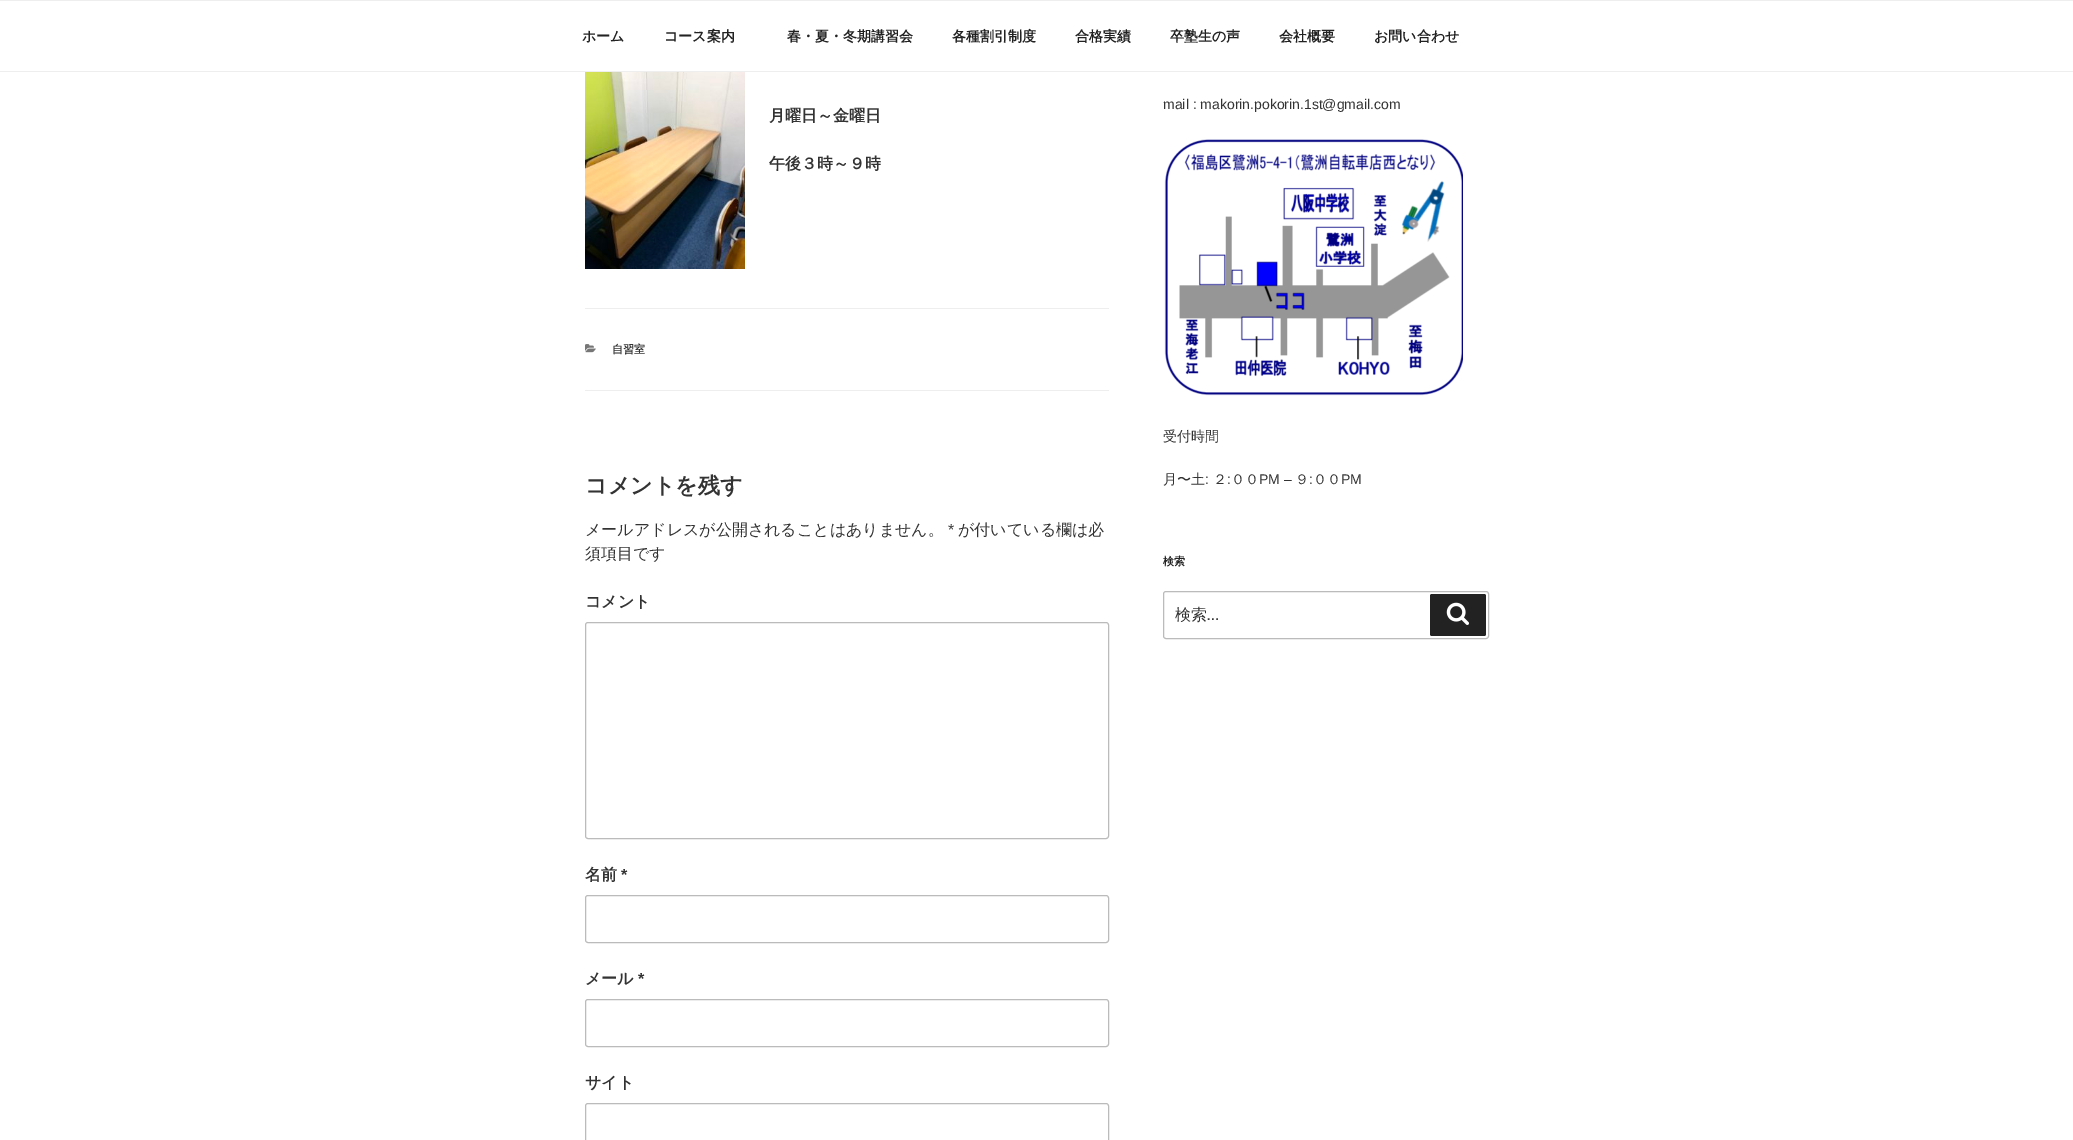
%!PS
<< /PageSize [2073 1140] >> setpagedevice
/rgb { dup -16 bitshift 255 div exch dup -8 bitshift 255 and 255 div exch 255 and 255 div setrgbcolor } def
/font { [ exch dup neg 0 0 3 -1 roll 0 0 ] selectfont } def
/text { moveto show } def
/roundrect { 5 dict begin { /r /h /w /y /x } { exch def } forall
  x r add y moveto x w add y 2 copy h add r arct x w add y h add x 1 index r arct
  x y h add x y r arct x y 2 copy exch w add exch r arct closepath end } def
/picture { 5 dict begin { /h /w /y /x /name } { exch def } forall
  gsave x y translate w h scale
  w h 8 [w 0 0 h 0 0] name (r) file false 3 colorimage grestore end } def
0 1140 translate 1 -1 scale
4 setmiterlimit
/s1 { /WenQuanYiZenHei-Bold 14 font 16#222222 rgb } def
/s2 { /WenQuanYiZenHei-Bold 16 font 16#333333 rgb } def
/s3 { /WenQuanYiZenHei-Bold 11 font 16#333333 rgb } def
/s4 { /WenQuanYiZenHei-Bold 22 font 16#333333 rgb } def
/s5 { /WenQuanYiZenHei-Medium 16 font 16#333333 rgb } def
/s6 { /LiberationSans-Regular 16 font 16#333333 rgb } def
/s7 { /LiberationSans-Bold 16 font 16#333333 rgb } def
/s8 { /LiberationSans-Regular 14 font 16#333333 rgb } def
/s9 { /WenQuanYiZenHei-Medium 14 font 16#333333 rgb } def
/s10 { /WenQuanYiZenHei-Bold 11 font 16#222222 rgb } def
/s11 { /LibreFranklin-Regular 16 font 16#333333 rgb } def
16#FFFFFF rgb
0 0 2073 1140 rectfill
16#EEEEEE rgb
0 0 2073 1 rectfill
0 71 2073 1 rectfill
s1
(ホーム) 582 41 text
(コース案内) 664 41 text
(春・夏・冬期講習会) 787 41 text
(各種割引制度) 952 41 text
(合格実績) 1075 41 text
(卒塾生の声) 1170 41 text
(会社概要) 1279 41 text
(お問い合わせ) 1374 41 text
(pic1.raw) 585 72 160 197 picture
s2
(月曜日～金曜日) 769 121 text
(午後３時～９時) 769 169 text
16#EEEEEE rgb
585 308 524 1 rectfill
585 390 524 1 rectfill
(pic2.raw) 585 344 11 9 picture
s3
(自習室) 612 353 text
s4
(コメントを残す) 585 493 text
s5
(メールアドレスが公開されることはありません。) 585 535 text
s6
(*) 948 535 text
s5
(が付いている欄は必) 958 535 text
(須項目です) 585 559 text
s2
(コメント) 585 607 text
16#BBBBBB rgb
585.5 622.5 523 216 2.5 roundrect stroke
s2
(名前) 585 880 text
s7
(*) 621 880 text
16#BBBBBB rgb
585.5 895.5 523 47 2.5 roundrect stroke
s2
(メール) 585 984 text
s7
(*) 638 984 text
16#BBBBBB rgb
585.5 999.5 523 47 2.5 roundrect stroke
s2
(サイト) 585 1088 text
16#BBBBBB rgb
585.5 1103.5 523 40 2.5 roundrect stroke
s8
(mail : makorin.pokorin.1st@gmail.com) 1163 109 text
(pic3.raw) 1164 139 299 257 picture
s9
(受付時間) 1163 441 text
(月〜土) 1163 484 text
s8
(:) 1205 484 text
s9
(２) 1213 484 text
s8
(:) 1227 484 text
s9
(００) 1231 484 text
s8
(PM –) 1259 484 text
s9
(９) 1295 484 text
s8
(:) 1309 484 text
s9
(００) 1313 484 text
s8
(PM) 1341 484 text
s10
(検索) 1163 565 text
16#BBBBBB rgb
1163.5 591.5 325 47 2.5 roundrect stroke
s5
(検索) 1175 620 text
s11
(…) 1207 620 text
16#222222 rgb
1430 594 56 42 2 roundrect fill
(pic4.raw) 1446 602 23 23 picture
showpage
